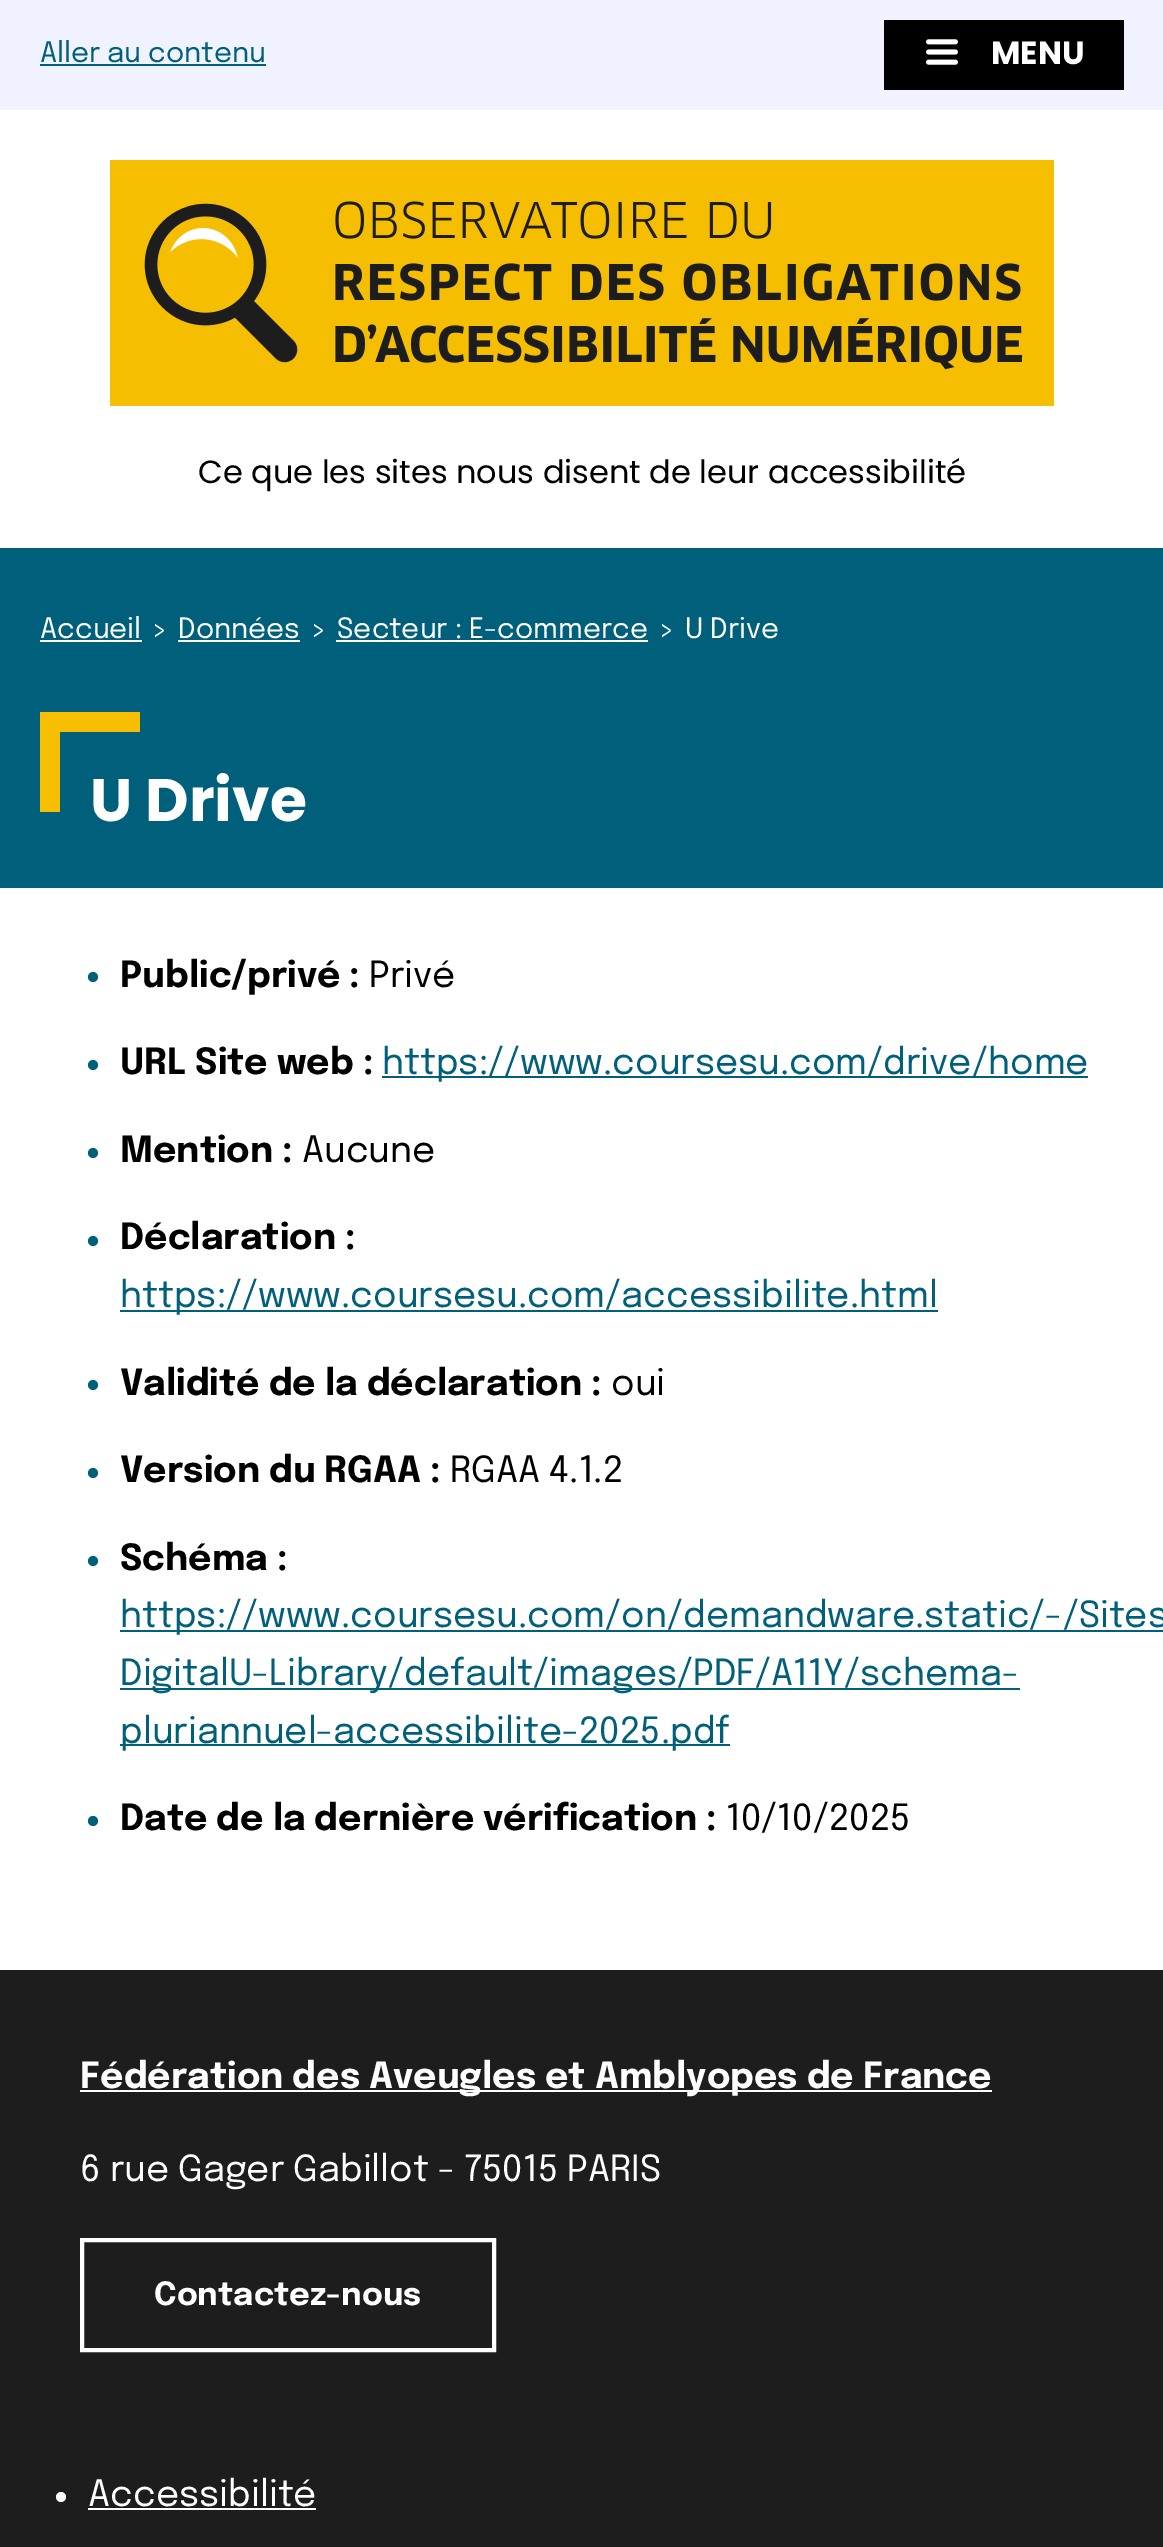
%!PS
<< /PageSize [1163 2547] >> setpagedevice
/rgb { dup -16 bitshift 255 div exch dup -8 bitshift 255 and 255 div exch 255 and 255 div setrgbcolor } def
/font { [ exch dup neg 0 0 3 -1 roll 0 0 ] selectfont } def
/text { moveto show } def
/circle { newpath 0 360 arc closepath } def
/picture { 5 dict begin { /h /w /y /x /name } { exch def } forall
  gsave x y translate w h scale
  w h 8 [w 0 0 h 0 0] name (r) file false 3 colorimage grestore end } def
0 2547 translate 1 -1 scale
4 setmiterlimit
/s1 { /Epilogue-Regular 28 font 16#005F7A rgb } def
/s2 { /Poppins-Bold 32 font 16#FFFFFF rgb } def
/s3 { /Poppins-Regular 32 font 16#000000 rgb } def
/s4 { /Epilogue-Regular 28 font 16#FFFFFF rgb } def
/s5 { /Poppins-Bold 60 font 16#FFFFFF rgb } def
/s6 { /Epilogue-Bold 36 font 16#000000 rgb } def
/s7 { /Epilogue-Regular 36 font 16#000000 rgb } def
/s8 { /Epilogue-Regular 36 font 16#005F7A rgb } def
/s9 { /Epilogue-Bold 36 font 16#FFFFFF rgb } def
/s10 { /Epilogue-Regular 36 font 16#FFFFFF rgb } def
/s11 { /Epilogue-Bold 32 font 16#FFFFFF rgb } def
16#FFFFFF rgb
0 0 1163 2547 rectfill
16#F0F3FF rgb
0 0 1163 110 rectfill
s1
(Aller au contenu) 40 62 text
40 64 226 2 rectfill
16#000000 rgb
884 20 240 70 rectfill
(pic1.raw) 926 39 32 26 picture
s2
(MENU) 991 64 text
(pic2.raw) 110 160 944 246 picture
s3
(Ce que les sites nous disent de leur accessibilité) 198 483 text
16#005F7A rgb
0 548 1163 340 rectfill
s4
(Accueil) 40 638 text
40 640 102 2 rectfill
(>) 151 638 text
(Données) 178 638 text
178 640 122 2 rectfill
(>) 310 638 text
(Secteur : E-commerce) 337 638 text
336 640 312 2 rectfill
(>) 658 638 text
(U Drive) 685 638 text
16#F6BE00 rgb
60 712 80 20 rectfill
40 712 20 100 rectfill
s5
(U Drive) 90 821 text
16#005F7A rgb
93 977 5 circle fill
s6
(Public/privé :) 120 987 text
s7
(Privé) 369 987 text
16#005F7A rgb
93 1065 5 circle fill
s6
(URL Site web :) 120 1074 text
16#005F7A rgb
382 1076 706 2 rectfill
s8
(https://www.coursesu.com/drive/home) 382 1074 text
93 1153 5 circle fill
s6
(Mention :) 120 1162 text
s7
(Aucune) 302 1162 text
16#005F7A rgb
93 1241 5 circle fill
s6
(Déclaration :) 120 1249 text
16#005F7A rgb
120 1310 818 2 rectfill
s8
(https://www.coursesu.com/accessibilite.html) 120 1307 text
93 1385 5 circle fill
s6
(Validité de la déclaration :) 120 1395 text
s7
(oui) 611 1395 text
16#005F7A rgb
93 1473 5 circle fill
s6
(Version du RGAA :) 120 1482 text
s7
(RGAA 4.1.2) 450 1482 text
16#005F7A rgb
93 1561 5 circle fill
s6
(Schéma :) 120 1570 text
16#005F7A rgb
120 1630 1043 2 rectfill
s8
(https://www.coursesu.com/on/demandware.static/-/Sites) 120 1627 text
120 1688 900 2 rectfill
(DigitalU-Library/default/images/PDF/A11Y/schema-) 120 1685 text
120 1744 610 2 rectfill
(pluriannuel-accessibilite-2025.pdf) 120 1743 text
93 1821 5 circle fill
s6
(Date de la dernière vérification :) 120 1830 text
s7
(10/10/2025) 726 1830 text
16#1D1D1D rgb
0 1970 1163 577 rectfill
16#FFFFFF rgb
80 2090 912 2 rectfill
s9
(Fédération des Aveugles et Amblyopes de France) 80 2088 text
s10
(6 rue Gager Gabillot - 75015 PARIS) 80 2181 text
4 setlinewidth
82 2240 412 110 rectstroke
s11
(Contactez-nous) 154 2305 text
61 2497 5 circle fill
s10
(Accessibilité) 88 2506 text
88 2508 228 2 rectfill
showpage
